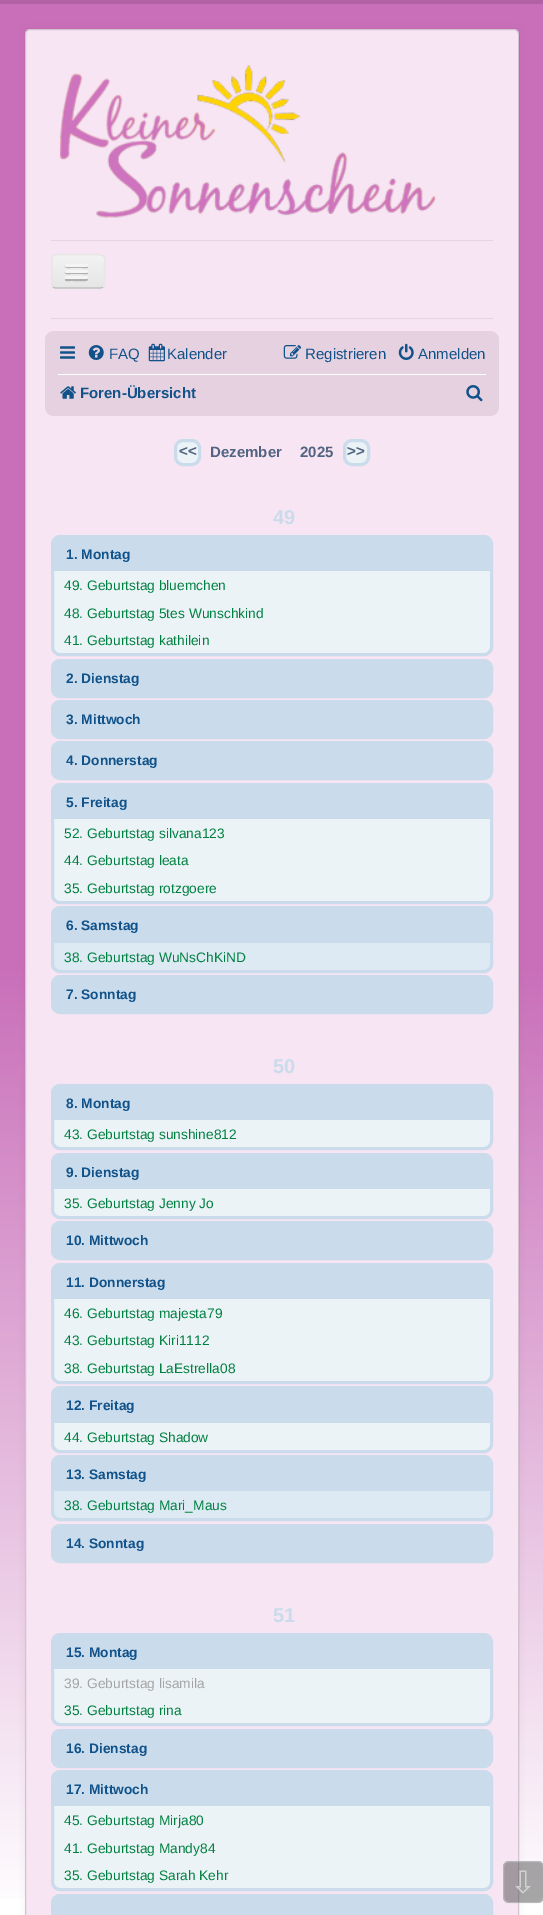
%!PS
<< /PageSize [543 1915] /PageUsesTransparency true >> setpagedevice
/rgb { dup -16 bitshift 255 div exch dup -8 bitshift 255 and 255 div exch 255 and 255 div setrgbcolor } def
/font { [ exch dup neg 0 0 3 -1 roll 0 0 ] selectfont } def
/text { moveto show } def
/alpha { dup .setfillconstantalpha .setstrokeconstantalpha } def
/roundrect { 5 dict begin { /r /h /w /y /x } { exch def } forall
  x r add y moveto x w add y 2 copy h add r arct x w add y h add x 1 index r arct
  x y h add x y r arct x y 2 copy exch w add exch r arct closepath end } def
/shadow { 12 dict begin { /a /b /q /h /w /y /x } { exch def } forall gsave /was 0 def
  9 -2 -9 { dup b mul 4 div /e exch def 1 sub .425 mul 2.718 exch exp 1 add a .99 .min exch div /now exch def
    1 1 now sub 1 was sub div sub alpha /was now def
    w h .min e 2 mul add 0 gt { x e sub y e sub w e 2 mul add h e 2 mul add
      q e add b .6 mul add w h .min 2 div e add .min 0 .max roundrect fill } if } for grestore end } def
/picture { 5 dict begin { /h /w /y /x /name } { exch def } forall
  gsave x y translate w h scale
  w h 8 [w 0 0 h 0 0] name (r) file false 3 colorimage grestore end } def
0 .pushpdf14devicefilter
0 1915 translate 1 -1 scale
4 setmiterlimit
/s1 { /LiberationSans-Regular 15 font 16#105289 rgb } def
/s2 { /LiberationSans-Bold 15 font 16#105289 rgb } def
/s3 { /LiberationSans-Bold 15 font 16#536482 rgb } def
/s4 { /LiberationSans-Bold 20 font 16#CADCEB rgb } def
/s5 { /LiberationSans-Bold 13.75 font 16#105289 rgb } def
/s6 { /LiberationSans-Regular 13.75 font 16#008040 rgb } def
/s7 { /LiberationSans-Regular 13.75 font 16#A4A4A4 rgb } def
/s8 { /DejaVuSans-Regular 31 font 16#D2D1D1 rgb } def
16#FFFFFF rgb
0 0 543 1915 rectfill
gsave 0 4 moveto 543 4 lineto 543 1898 lineto 0 1898 lineto closepath clip newpath
<< /ShadingType 2 /ColorSpace /DeviceRGB /Coords [272 1915 272 0] /Extend [true true] /Function << /FunctionType 3 /Domain [0 1] /Functions [<< /FunctionType 2 /Domain [0 1] /C0 [1 1 1] /C1 [0.788 0.431 0.725] /N 1 >> << /FunctionType 2 /Domain [0 1] /C0 [0.788 0.431 0.725] /C1 [0.788 0.431 0.725] /N 1 >>] /Bounds [0.5] /Encode [0 1 0 1] >> >> shfill grestore
16#B161A4 rgb
0 0 543 4 rectfill
16#000000 rgb
25 29 494 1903 5 4 0.05 shadow
16#F8E5F4 rgb
25 29 494 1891 5 roundrect fill
0.15 alpha
16#000000 rgb
25.5 29.5 493 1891 4.5 roundrect stroke
1 alpha
(pic1.raw) 59 65 377 153 picture
16#E5D4E2 rgb
51 240 442 1 rectfill
51 318 442 1 rectfill
16#EDEDED rgb
51 254 54 35 5 roundrect fill
gsave
51 254 54 35 5 roundrect clip newpath
gsave 51 255 moveto 105 255 lineto 105 288 lineto 51 288 lineto closepath clip newpath
<< /ShadingType 2 /ColorSpace /DeviceRGB /Coords [78 255 78 288] /Extend [true true] /Function << /FunctionType 2 /Domain [0 1] /C0 [0.949 0.949 0.949] /C1 [0.902 0.902 0.902] /N 1 >> >> shfill grestore
grestore
16#BFBFBF rgb
1.2 setlinewidth
103 287 moveto 102.5 287.5 101 288 100 288 curveto 56 288 lineto 55 288 54 287.5 53 287 curveto stroke
16#E6E6E6 rgb
53 287 moveto 50.5 284.5 52 274.5 52 271 curveto 52 255.5 48.5 254.5 63.5 254.5 curveto 92.5 254.5 lineto 107.5 254.5 104.5 255.5 104.5 271 curveto 104.5 274.5 105.5 284.5 103 287 curveto stroke
16#B2B2B2 rgb
65 265.5 moveto 63.5 268.5 69.5 268 70 268 curveto 83 268 lineto 84 268 87.5 269 88 267 curveto 88 266.5 88 265.5 87.5 265.5 curveto 86.5 266 lineto 66 266 lineto closepath fill
16#F5F5F5 rgb
65 264 23 3 1.5 roundrect fill
16#B0B0B0 rgb
65 272 moveto 64 274.5 69 274 70 274 curveto 83 274 lineto 84 274 87.5 275 88 273 curveto 88 272.5 88 271.5 87.5 271.5 curveto 87.5 272 87 272.5 86 272.5 curveto 66 272.5 lineto 66 272.5 65.5 272 65 272 curveto closepath fill
16#F5F5F5 rgb
65 270 23 3 1.5 roundrect fill
16#AFAFAF rgb
65.5 278.5 moveto 65 280 lineto 65.5 282 69 281 70 281 curveto 73 281 lineto 75 281 86.5 281.5 87.5 280.5 curveto 88 280 88 279 87.5 278 curveto 86.5 278.5 lineto 84.5 279 66 279 65.5 278.5 curveto closepath fill
16#F5F5F5 rgb
65 276 23 3 1.5 roundrect fill
16#E6D1E0 rgb
45 331 454 85 9 roundrect fill
(pic2.raw) 60 346 15 13 picture
(pic3.raw) 88 345 16 15 picture
s1
(FAQ) 109 359 text
(pic4.raw) 148 343 17 19 picture
(Kalender) 167 359 text
(pic5.raw) 283 345 19 14 picture
(Registrieren) 305 359 text
(pic6.raw) 398 343 16 17 picture
(Anmelden) 418 359 text
16#FFFFFF rgb
58 374 428 1 rectfill
(pic7.raw) 60 386 16 13 picture
gsave
58 378 138 32 rectclip
s2
(Foren-Übersicht) 80 398 text
grestore
(pic8.raw) 466 385 17 17 picture
16#ECF3F7 rgb
175.5 440.5 24 24 7.5 roundrect gsave fill grestore
16#CADCEB rgb
3 setlinewidth
stroke
s3
(<<) 179 456 text
(Dezember) 210 457 text
(2025) 300 457 text
16#ECF3F7 rgb
344.5 440.5 24 24 7.5 roundrect gsave fill grestore
16#CADCEB rgb
stroke
s3
(>>) 347 456 text
s4
(49) 273 524 text
16#ECF3F7 rgb
52.5 536.5 439 118 7.5 roundrect gsave fill grestore
16#CADCEB rgb
stroke
60 538 moveto 484 538 lineto 487.5 538 490 540.5 490 544 curveto 490 571 lineto 54 571 lineto 54 544 lineto 54 540.5 56.5 538 60 538 curveto closepath fill
s5
(1. Montag) 66 559 text
s6
(49. Geburtstag bluemchen) 64 590 text
(48. Geburtstag 5tes Wunschkind) 64 618 text
(41. Geburtstag kathilein) 64 645 text
16#CADCEB rgb
52.5 660.5 439 36 7.5 roundrect stroke
54 661 436 34 6 roundrect fill
s5
(2. Dienstag) 66 683 text
16#CADCEB rgb
52.5 701.5 439 36 7.5 roundrect stroke
54 703 436 33 6 roundrect fill
s5
(3. Mittwoch) 66 724 text
16#CADCEB rgb
52.5 742.5 439 36 7.5 roundrect stroke
54 744 436 34 6 roundrect fill
s5
(4. Donnerstag) 66 765 text
16#ECF3F7 rgb
52.5 784.5 439 118 7.5 roundrect gsave fill grestore
16#CADCEB rgb
stroke
60 785 moveto 484 785 lineto 487.5 785 490 787.5 490 791 curveto 490 819 lineto 54 819 lineto 54 791 lineto 54 787.5 56.5 785 60 785 curveto closepath fill
s5
(5. Freitag) 66 807 text
s6
(52. Geburtstag silvana123) 64 838 text
(44. Geburtstag leata) 64 865 text
(35. Geburtstag rotzgoere) 64 893 text
16#DDEAF4 rgb
52.5 907.5 439 64 7.5 roundrect gsave fill grestore
16#CADCEB rgb
stroke
60 909 moveto 484 909 lineto 487.5 909 490 911.5 490 915 curveto 490 943 lineto 54 943 lineto 54 915 lineto 54 911.5 56.5 909 60 909 curveto closepath fill
s5
(6. Samstag) 66 930 text
s6
(38. Geburtstag WuNsChKiND) 64 962 text
16#CADCEB rgb
52.5 976.5 439 36 7.5 roundrect stroke
54 978 436 33 6 roundrect fill
s5
(7. Sonntag) 66 999 text
s4
(50) 273 1073 text
16#ECF3F7 rgb
52.5 1085.5 439 63 7.5 roundrect gsave fill grestore
16#CADCEB rgb
stroke
60 1086 moveto 484 1086 lineto 487.5 1086 490 1088.5 490 1092 curveto 490 1120 lineto 54 1120 lineto 54 1092 lineto 54 1088.5 56.5 1086 60 1086 curveto closepath fill
s5
(8. Montag) 66 1108 text
s6
(43. Geburtstag sunshine812) 64 1139 text
16#ECF3F7 rgb
52.5 1154.5 439 63 7.5 roundrect gsave fill grestore
16#CADCEB rgb
stroke
60 1155 moveto 484 1155 lineto 487.5 1155 490 1157.5 490 1161 curveto 490 1189 lineto 54 1189 lineto 54 1161 lineto 54 1157.5 56.5 1155 60 1155 curveto closepath fill
s5
(9. Dienstag) 66 1177 text
s6
(35. Geburtstag Jenny Jo) 64 1208 text
16#CADCEB rgb
52.5 1222.5 439 36 7.5 roundrect stroke
54 1224 436 34 6 roundrect fill
s5
(10. Mittwoch) 66 1245 text
16#ECF3F7 rgb
52.5 1264.5 439 118 7.5 roundrect gsave fill grestore
16#CADCEB rgb
stroke
60 1265 moveto 484 1265 lineto 487.5 1265 490 1267.5 490 1271 curveto 490 1299 lineto 54 1299 lineto 54 1271 lineto 54 1267.5 56.5 1265 60 1265 curveto closepath fill
s5
(11. Donnerstag) 66 1287 text
s6
(46. Geburtstag majesta79) 64 1318 text
(43. Geburtstag Kiri1112) 64 1345 text
(38. Geburtstag LaEstrella08) 64 1373 text
16#ECF3F7 rgb
52.5 1387.5 439 64 7.5 roundrect gsave fill grestore
16#CADCEB rgb
stroke
60 1389 moveto 484 1389 lineto 487.5 1389 490 1391.5 490 1395 curveto 490 1423 lineto 54 1423 lineto 54 1395 lineto 54 1391.5 56.5 1389 60 1389 curveto closepath fill
s5
(12. Freitag) 66 1410 text
s6
(44. Geburtstag Shadow) 64 1442 text
16#DDEAF4 rgb
52.5 1456.5 439 63 7.5 roundrect gsave fill grestore
16#CADCEB rgb
stroke
60 1458 moveto 484 1458 lineto 487.5 1458 490 1460.5 490 1464 curveto 490 1491 lineto 54 1491 lineto 54 1464 lineto 54 1460.5 56.5 1458 60 1458 curveto closepath fill
s5
(13. Samstag) 66 1479 text
s6
(38. Geburtstag Mari_Maus) 64 1510 text
16#CADCEB rgb
52.5 1525.5 439 36 7.5 roundrect stroke
54 1526 436 34 6 roundrect fill
s5
(14. Sonntag) 66 1548 text
s4
(51) 273 1622 text
16#ECF3F7 rgb
52.5 1634.5 439 90 7.5 roundrect gsave fill grestore
16#CADCEB rgb
stroke
60 1635 moveto 484 1635 lineto 487.5 1635 490 1637.5 490 1641 curveto 490 1669 lineto 54 1669 lineto 54 1641 lineto 54 1637.5 56.5 1635 60 1635 curveto closepath fill
s5
(15. Montag) 66 1657 text
s7
(39. Geburtstag lisamila) 64 1688 text
s6
(35. Geburtstag rina) 64 1715 text
16#CADCEB rgb
52.5 1730.5 439 36 7.5 roundrect stroke
54 1731 436 34 6 roundrect fill
s5
(16. Dienstag) 66 1753 text
16#ECF3F7 rgb
52.5 1771.5 439 118 7.5 roundrect gsave fill grestore
16#CADCEB rgb
stroke
60 1773 moveto 484 1773 lineto 487.5 1773 490 1775.5 490 1779 curveto 490 1806 lineto 54 1806 lineto 54 1779 lineto 54 1775.5 56.5 1773 60 1773 curveto closepath fill
s5
(17. Mittwoch) 66 1794 text
s6
(45. Geburtstag Mirja80) 64 1825 text
(41. Geburtstag Mandy84) 64 1853 text
(35. Geburtstag Sarah Kehr) 64 1880 text
16#CADCEB rgb
52.5 1895.5 439 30 7.5 roundrect stroke
60 1896 moveto 484 1896 lineto 487.5 1896 490 1898.5 490 1902 curveto 490 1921 lineto 54 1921 lineto 54 1902 lineto 54 1898.5 56.5 1896 60 1896 curveto closepath fill
0.5 alpha
16#4F4F4F rgb
503 1861 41 42 6 roundrect fill
16#CCCCCC rgb
1 setlinewidth
503.5 1861.5 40 41 5.5 roundrect stroke
1 alpha
s8
(⇩) 510 1893 text
.poppdf14devicefilter showpage
